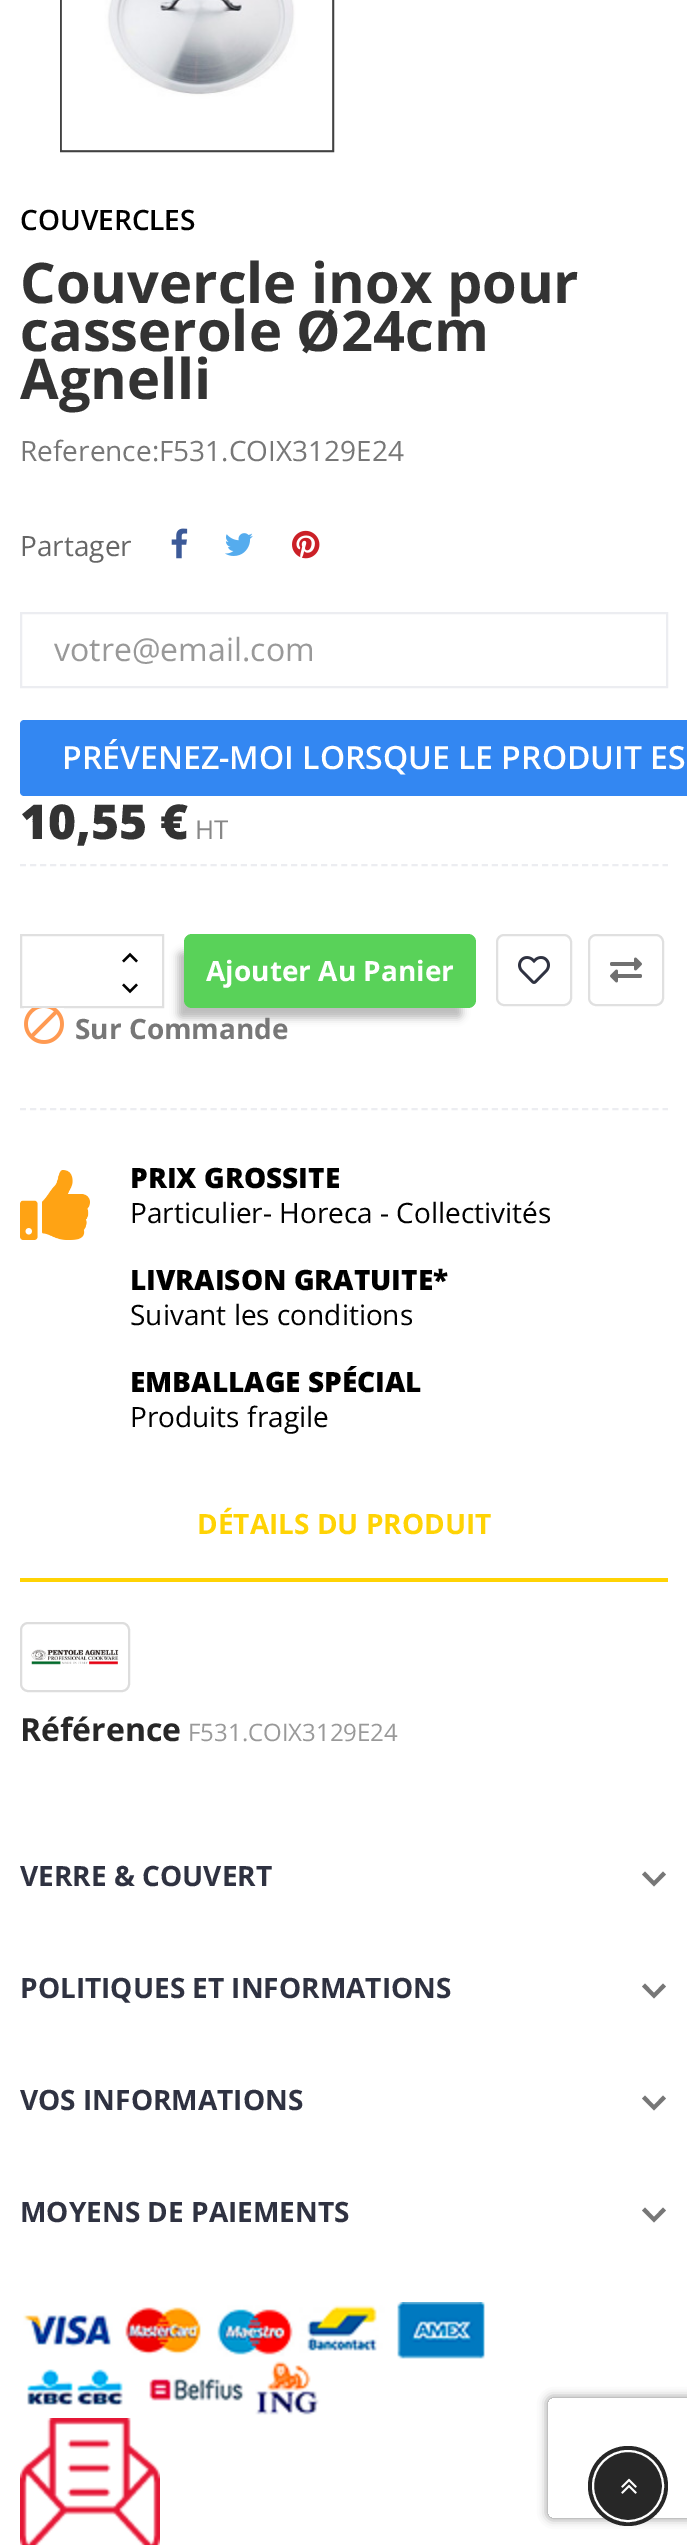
%!PS
<< /PageSize [687 2545] /PageUsesTransparency true >> setpagedevice
/rgb { dup -16 bitshift 255 div exch dup -8 bitshift 255 and 255 div exch 255 and 255 div setrgbcolor } def
/font { [ exch dup neg 0 0 3 -1 roll 0 0 ] selectfont } def
/text { moveto show } def
/alpha { dup .setfillconstantalpha .setstrokeconstantalpha } def
/circle { newpath 0 360 arc closepath } def
/roundrect { 5 dict begin { /r /h /w /y /x } { exch def } forall
  x r add y moveto x w add y 2 copy h add r arct x w add y h add x 1 index r arct
  x y h add x y r arct x y 2 copy exch w add exch r arct closepath end } def
/shadow { 12 dict begin { /a /b /q /h /w /y /x } { exch def } forall gsave /was 0 def
  9 -2 -9 { dup b mul 4 div /e exch def 1 sub .425 mul 2.718 exch exp 1 add a .99 .min exch div /now exch def
    1 1 now sub 1 was sub div sub alpha /was now def
    w h .min e 2 mul add 0 gt { x e sub y e sub w e 2 mul add h e 2 mul add
      q e add b .6 mul add w h .min 2 div e add .min 0 .max roundrect fill } if } for grestore end } def
/picture { 5 dict begin { /h /w /y /x /name } { exch def } forall
  gsave x y translate w h scale
  w h 8 [w 0 0 h 0 0] name (r) file false 3 colorimage grestore end } def
0 .pushpdf14devicefilter
0 2545 translate 1 -1 scale
4 setmiterlimit
/s1 { /OpenSans-SemiBold 28 font 16#000000 rgb } def
/s2 { /OpenSans-Bold 56 font 16#333333 rgb } def
/s3 { /OpenSans-Regular 28 font 16#777777 rgb } def
/s4 { /OpenSans-Regular 28 font 16#666666 rgb } def
/s5 { /OpenSans-Regular 32 font 16#999999 rgb } def
/s6 { /OpenSans-SemiBold 32 font 16#FFFFFF rgb } def
/s7 { /OpenSans-ExtraBold 48 font 16#333333 rgb } def
/s8 { /OpenSans-Regular 26 font 16#878787 rgb } def
/s9 { /OpenSans-Bold 28 font 16#FFFFFF rgb } def
/s10 { /OpenSans-Bold 28 font 16#777777 rgb } def
/s11 { /OpenSans-ExtraBold 28 font 16#000000 rgb } def
/s12 { /OpenSans-Regular 28 font 16#000000 rgb } def
/s13 { /OpenSans-Bold 28 font 16#FFD304 rgb } def
/s14 { /OpenSans-Bold 32 font 16#272727 rgb } def
/s15 { /OpenSans-Regular 24 font 16#999999 rgb } def
/s16 { /OpenSans-Bold 28 font 16#2F3241 rgb } def
16#FFFFFF rgb
0 0 687 2545 rectfill
16#414141 rgb
2 setlinewidth
61 -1 272 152 rectstroke
(pic1.raw) 61 0 272 151 picture
s1
(COUVERCLES) 20 230 text
s2
(Couvercle inox pour) 20 303 text
(casserole Ø24cm) 20 351 text
(Agnelli) 20 399 text
s3
(Reference:F531.COIX3129E24) 20 461 text
s4
(Partager) 20 556 text
(pic2.raw) 171 528 17 31 picture
(pic3.raw) 225 533 28 23 picture
(pic4.raw) 292 530 28 29 picture
16#ECEDF1 rgb
21 613 646 74 rectstroke
s5
(votre@email.com) 54 661 text
16#3387F2 rgb
24 720 moveto 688 720 lineto 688 796 lineto 24 796 lineto 22 796 20 794 20 792 curveto 20 724 lineto 20 722 22 720 24 720 curveto closepath fill
s6
(PRÉVENEZ-MOI LORSQUE LE PRODUIT ES) 62 769 text
s7
(10,55 €) 20 839 text
s8
(HT) 195 839 text
16#ECEDF1 rgb
[6 4.04] 0 setdash
20 865 moveto 668 865 lineto stroke
20 1109 moveto 668 1109 lineto stroke
16#E0E0E0 rgb
[] 0 setdash
21 935 142 72 rectstroke
(pic5.raw) 122 952 16 11 picture
(pic6.raw) 122 983 16 11 picture
16#000000 rgb
178 952 284 66 4 4 0.26 shadow
16#59D259 rgb
184 934 292 74 8 roundrect fill
s9
(Ajouter Au Panier) 206 981 text
16#E0E0E0 rgb
497 935 74 70 7 roundrect stroke
(pic7.raw) 518 956 32 28 picture
589 935 74 70 7 roundrect stroke
(pic8.raw) 610 957 32 26 picture
(pic9.raw) 24 1008 40 36 picture
s10
(Sur Commande) 75 1039 text
(pic10.raw) 20 1170 70 70 picture
s11
(PRIX GROSSITE) 130 1188 text
s12
(Particulier- Horeca - Collectivités) 130 1223 text
s11
(LIVRAISON GRATUITE*) 130 1290 text
s12
(Suivant les conditions) 130 1325 text
s11
(EMBALLAGE SPÉCIAL) 130 1392 text
s12
(Produits fragile) 130 1427 text
s13
(DÉTAILS DU PRODUIT) 197 1534 text
20 1578 648 4 rectfill
16#DDDDDD rgb
21 1623 108 68 7 roundrect stroke
(pic11.raw) 31 1649 88 16 picture
s14
(Référence) 20 1741 text
s15
(F531.COIX3129E24) 188 1741 text
s16
(VERRE & COUVERT) 20 1886 text
16#777777 rgb
645 1871.5 moveto 654 1881 lineto 663 1871.5 lineto 666 1874.5 lineto 654 1886.5 lineto 642 1874.5 lineto closepath fill
s16
(POLITIQUES ET INFORMATIONS) 20 1998 text
16#777777 rgb
645 1983.5 moveto 654 1993 lineto 663 1983.5 lineto 666 1986.5 lineto 654 1998.5 lineto 642 1986.5 lineto closepath fill
s16
(VOS INFORMATIONS) 20 2110 text
16#777777 rgb
645 2095.5 moveto 654 2105 lineto 663 2095.5 lineto 666 2098.5 lineto 654 2110.5 lineto 642 2098.5 lineto closepath fill
s16
(MOYENS DE PAIEMENTS) 20 2222 text
16#777777 rgb
645 2207.5 moveto 654 2217 lineto 663 2207.5 lineto 666 2210.5 lineto 654 2222.5 lineto 642 2210.5 lineto closepath fill
(pic12.raw) 23 2302 462 113 picture
(pic13.raw) 20 2418 140 127 picture
gsave
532 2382 moveto 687 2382 lineto 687 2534 lineto 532 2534 lineto closepath 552 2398 moveto 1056 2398 lineto 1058 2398 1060 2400 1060 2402 curveto 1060 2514 lineto 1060 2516 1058 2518 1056 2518 curveto 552 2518 lineto 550 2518 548 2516 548 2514 curveto 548 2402 lineto 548 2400 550 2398 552 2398 curveto closepath eoclip newpath
16#808080 rgb
548 2398 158 120 4 5 1 shadow
grestore
16#272727 rgb
628 2486 40 circle fill
16#FFFFFF rgb
628 2486 35 circle stroke
(pic14.raw) 621 2478 16 16 picture
.poppdf14devicefilter showpage
